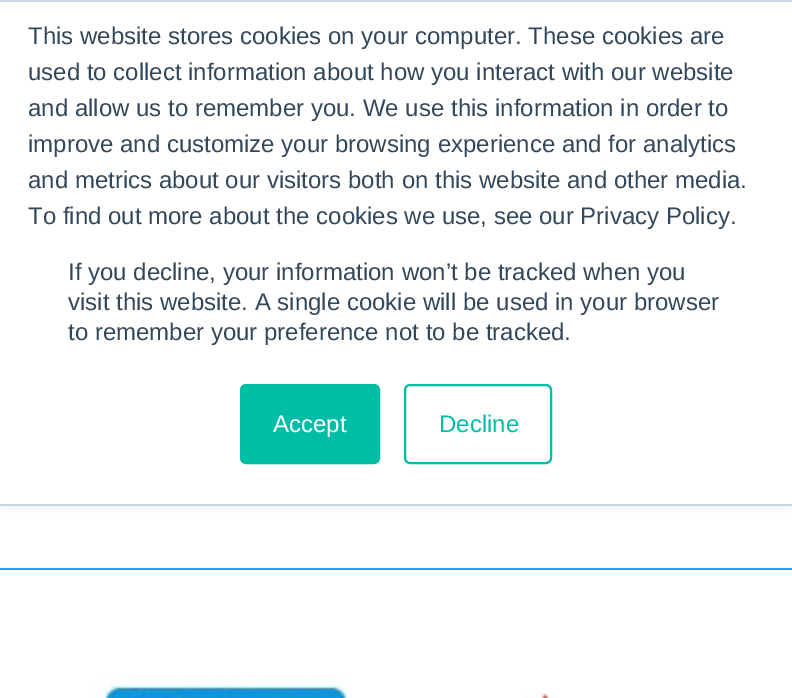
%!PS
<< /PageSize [792 698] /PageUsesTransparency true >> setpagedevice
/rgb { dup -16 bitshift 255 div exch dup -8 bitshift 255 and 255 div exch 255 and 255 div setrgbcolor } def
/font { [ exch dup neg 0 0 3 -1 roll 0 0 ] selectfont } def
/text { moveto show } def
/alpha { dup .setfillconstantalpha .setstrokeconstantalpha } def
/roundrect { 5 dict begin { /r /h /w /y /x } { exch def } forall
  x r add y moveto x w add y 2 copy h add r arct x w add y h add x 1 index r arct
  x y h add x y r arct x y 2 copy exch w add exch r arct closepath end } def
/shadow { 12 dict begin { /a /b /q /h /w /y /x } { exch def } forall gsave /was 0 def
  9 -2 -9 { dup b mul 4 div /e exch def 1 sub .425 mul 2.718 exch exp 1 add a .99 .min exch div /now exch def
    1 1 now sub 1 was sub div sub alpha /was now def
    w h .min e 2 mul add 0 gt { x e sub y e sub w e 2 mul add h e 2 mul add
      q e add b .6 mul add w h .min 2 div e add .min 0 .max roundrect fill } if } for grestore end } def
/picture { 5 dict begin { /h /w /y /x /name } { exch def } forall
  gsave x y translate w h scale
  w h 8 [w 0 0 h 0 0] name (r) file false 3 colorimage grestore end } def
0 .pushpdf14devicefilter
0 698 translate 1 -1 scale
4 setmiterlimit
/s1 { /LiberationSans-Regular 24 font 16#33475B rgb } def
/s2 { /LiberationSans-Regular 24 font 16#FFFFFF rgb } def
/s3 { /LiberationSans-Regular 24 font 16#00BDA5 rgb } def
16#FFFFFF rgb
0 0 792 698 rectfill
16#EAF0F6 rgb
0 2 792 506 0 5 1 shadow
16#FFFFFF rgb
0 2 792 502 rectfill
16#CBD6E2 rgb
0 0 792 2 rectfill
0 504 792 2 rectfill
s1
(This website stores cookies on your computer. These cookies are) 28 44 text
(used to collect information about how you interact with our website) 28 80 text
(and allow us to remember you. We use this information in order to) 28 116 text
(improve and customize your browsing experience and for analytics) 28 152 text
(and metrics about our visitors both on this website and other media.) 28 188 text
(To find out more about the cookies we use, see our Privacy Policy.) 28 224 text
(If you decline, your information won’t be tracked when you) 68 280 text
(visit this website. A single cookie will be used in your browser) 68 310 text
(to remember your preference not to be tracked.) 68 340 text
16#00BDA5 rgb
241 385 138 78 5 roundrect gsave fill grestore
2 setlinewidth
stroke
s2
(Accept) 273 432 text
16#00BDA5 rgb
405 385 146 78 5 roundrect stroke
(Decline) 439 432 text
16#13AAE5 rgb
0 568 792 2 rectfill
(pic1.raw) 95 678 462 20 picture
.poppdf14devicefilter showpage
